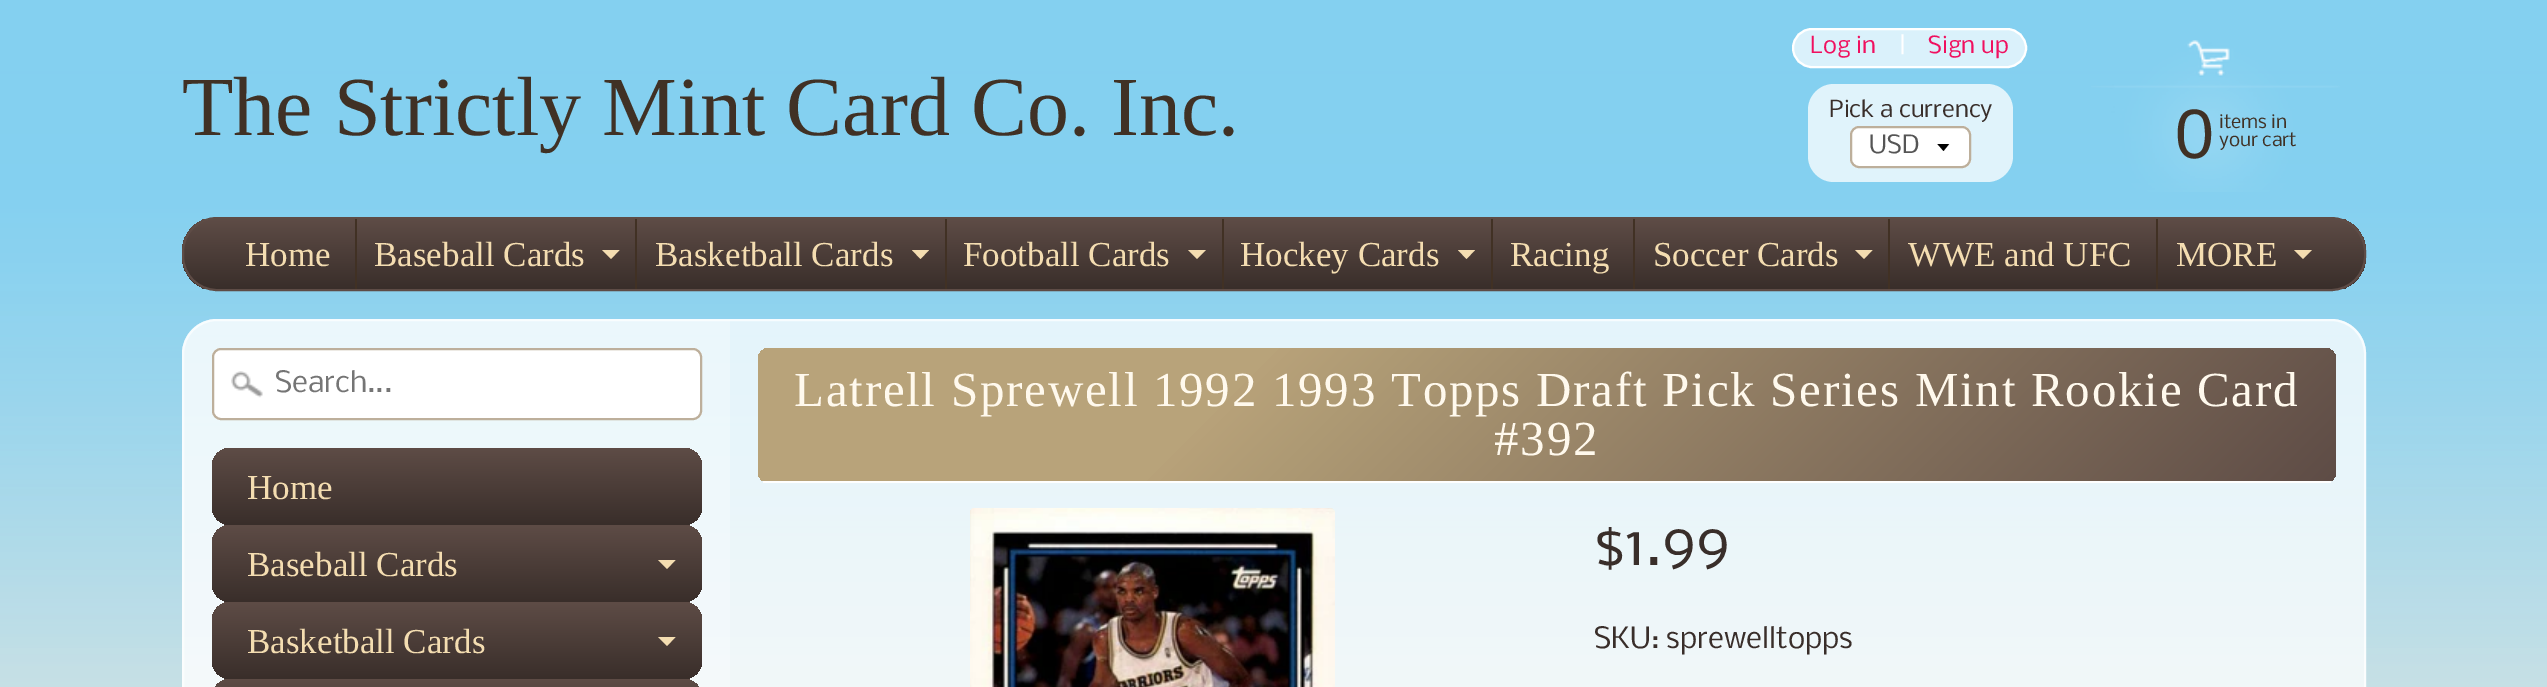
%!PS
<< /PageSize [2547 687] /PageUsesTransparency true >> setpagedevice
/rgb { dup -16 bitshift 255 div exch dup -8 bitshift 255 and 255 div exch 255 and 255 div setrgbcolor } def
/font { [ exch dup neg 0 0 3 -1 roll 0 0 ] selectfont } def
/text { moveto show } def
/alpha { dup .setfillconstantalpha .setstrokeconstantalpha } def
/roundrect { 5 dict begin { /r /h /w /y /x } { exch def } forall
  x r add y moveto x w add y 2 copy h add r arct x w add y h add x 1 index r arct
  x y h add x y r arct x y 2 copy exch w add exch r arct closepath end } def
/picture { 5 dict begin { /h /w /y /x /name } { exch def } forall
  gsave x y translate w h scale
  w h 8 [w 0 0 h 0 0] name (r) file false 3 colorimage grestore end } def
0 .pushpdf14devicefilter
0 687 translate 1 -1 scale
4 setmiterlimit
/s1 { /Nobile-Regular 22.5 font 16#F0105F rgb } def
/s2 { /Nobile-Regular 22.5 font 16#FFFFFF rgb } def
/s3 { /LiberationSerif-Regular 84 font 16#403125 rgb } def
/s4 { /LiberationSans-Regular 70 font 16#403125 rgb } def
/s5 { /Nobile-Regular 18 font 16#403125 rgb } def
/s6 { /LiberationSerif-Regular 35 font 16#F4DDB1 rgb } def
/s7 { /Nobile-Regular 22.5 font 16#392E2A rgb } def
/s8 { /Nobile-Regular 24 font 16#555555 rgb } def
/s9 { /Nobile-Regular 28 font 16#757575 rgb } def
/s10 { /Nobile-Regular 56 font 16#392E2A rgb } def
/s11 { /Nobile-Regular 28 font 16#392E2A rgb } def
16#FCECDC rgb
0 0 2547 687 rectfill
(pic1.raw) 0 0 2547 687 picture
16#DAF1FB rgb
1793 29 233 38 19 roundrect gsave fill grestore
16#FFFFFF rgb
2 setlinewidth
stroke
s1
(Log in) 1810 53 text
s2
(|) 1899 53 text
s1
(Sign up) 1928 53 text
s3
(The Strictly Mint Card Co. Inc.) 182 135 text
(pic2.raw) 2091 40 249 152 picture
s4
(0) 2175 158 text
s5
(items in) 2219 128 text
(your cart) 2219 146 text
gsave
182 217 2184 74 35 roundrect clip newpath
gsave 182 219 moveto 2366 219 lineto 2366 289 lineto 182 289 lineto closepath clip newpath
<< /ShadingType 2 /ColorSpace /DeviceRGB /Coords [1274 219 1274 289] /Extend [true true] /Function << /FunctionType 2 /Domain [0 1] /C0 [0.369 0.298 0.275] /C1 [0.224 0.18 0.165] /N 1 >> >> shfill grestore
grestore
16#5E4C46 rgb
183 218 2182 72 34 roundrect stroke
s6
(Home) 245 266 text
16#413124 rgb
355 219 2 70 rectfill
s6
(Baseball Cards) 374 266 text
602 250 moveto 619.5 250 lineto 611 259 lineto closepath fill
16#413124 rgb
635 219 2 70 rectfill
s6
(Basketball Cards) 655 266 text
912 250 moveto 929 250 lineto 920.5 259 lineto closepath fill
16#413124 rgb
945 219 2 70 rectfill
s6
(Football Cards) 963 266 text
1188 250 moveto 1206 250 lineto 1197 259 lineto closepath fill
16#413124 rgb
1222 219 2 70 rectfill
s6
(Hockey Cards) 1240 266 text
1458 250 moveto 1475 250 lineto 1466.5 259 lineto closepath fill
16#413124 rgb
1491 219 2 70 rectfill
s6
(Racing) 1510 266 text
16#413124 rgb
1633 219 2 70 rectfill
s6
(Soccer Cards) 1653 266 text
1855 250 moveto 1872.5 250 lineto 1864 259 lineto closepath fill
16#413124 rgb
1888 219 2 70 rectfill
s6
(WWE and UFC) 1908 266 text
16#413124 rgb
2156 219 2 70 rectfill
s6
(MORE) 2176 266 text
2294 250 moveto 2312 250 lineto 2303 259 lineto closepath fill
16#E0F3FB rgb
1808 84 205 98 26 roundrect fill
s7
(Pick a currency) 1829 117 text
16#FFFFFF rgb
1850 126 121 42 9 roundrect fill
gsave
1937 144 14 8 rectclip
16#000000 rgb
1937 143.5 moveto 1943.5 151 lineto 1949.5 143.5 lineto closepath fill
grestore
16#BDAF9B rgb
1851 127 119 40 8 roundrect stroke
s8
(USD) 1869 153 text
0.75 alpha
16#FFFFFF rgb
182 319 2184 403 35 roundrect fill
0.7 alpha
183 320 2182 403 34 roundrect stroke
0.25 alpha
217 320 moveto 730 320 lineto 730 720 lineto 217 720 lineto 199 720 184 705 184 687 curveto 184 353 lineto 184 335 199 320 217 320 curveto closepath fill
1 alpha
212 348 490 72 9 roundrect fill
(pic3.raw) 231 371 32 27 picture
16#BDAF9B rgb
213 349 488 70 8 roundrect stroke
s9
(Search...) 275 392 text
gsave 212 448 490 77 18 roundrect clip newpath
<< /ShadingType 2 /ColorSpace /DeviceRGB /Coords [457 448 457 525] /Extend [true true] /Function << /FunctionType 2 /Domain [0 1] /C0 [0.369 0.298 0.275] /C1 [0.224 0.18 0.165] /N 1 >> >> shfill grestore
s6
(Home) 247 499 text
gsave 212 525 490 77 18 roundrect clip newpath
<< /ShadingType 2 /ColorSpace /DeviceRGB /Coords [457 525 457 602] /Extend [true true] /Function << /FunctionType 2 /Domain [0 1] /C0 [0.369 0.298 0.275] /C1 [0.224 0.18 0.165] /N 1 >> >> shfill grestore
(Baseball Cards) 247 576 text
658 560 moveto 675.5 560 lineto 667 569 lineto closepath fill
gsave 212 602 490 77 18 roundrect clip newpath
<< /ShadingType 2 /ColorSpace /DeviceRGB /Coords [457 602 457 679] /Extend [true true] /Function << /FunctionType 2 /Domain [0 1] /C0 [0.369 0.298 0.275] /C1 [0.224 0.18 0.165] /N 1 >> >> shfill grestore
(Basketball Cards) 247 653 text
658 637 moveto 675.5 637 lineto 667 646 lineto closepath fill
gsave 212 679 490 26 18 roundrect clip newpath
<< /ShadingType 2 /ColorSpace /DeviceRGB /Coords [457 679 457 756] /Extend [true true] /Function << /FunctionType 2 /Domain [0 1] /C0 [0.369 0.298 0.275] /C1 [0.224 0.18 0.165] /N 1 >> >> shfill grestore
gsave
758 348 1578 135 11 roundrect clip newpath
gsave 769 348 moveto 2325 348 lineto 2331 348 2336 353 2336 359 curveto 2336 481 lineto 758 481 lineto 758 359 lineto 758 353 763 348 769 348 curveto closepath clip newpath
<< /ShadingType 2 /ColorSpace /DeviceRGB /Coords [1119 -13 1975 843] /Extend [true true] /Function << /FunctionType 3 /Domain [0 1] /Functions [<< /FunctionType 2 /Domain [0 1] /C0 [0.722 0.639 0.478] /C1 [0.722 0.639 0.478] /N 1 >> << /FunctionType 2 /Domain [0 1] /C0 [0.722 0.639 0.478] /C1 [0.369 0.298 0.275] /N 1 >>] /Bounds [0.3] /Encode [0 1 0 1] >> >> shfill grestore
grestore
16#FFFFFF rgb
763 481 1568 2 rectfill
/LiberationSerif-Regular 49 font
16#FFF9ED rgb
794 406 moveto 1.75 0 (Latrell Sprewell 1992 1993 Topps Draft Pick Series Mint Rookie Card) ashow
1494 455 moveto 1.75 0 (#392) ashow
(pic4.raw) 970 508 365 179 picture
s10
($1.99) 1594 565 text
s11
(SKU: sprewelltopps) 1594 648 text
.poppdf14devicefilter showpage
